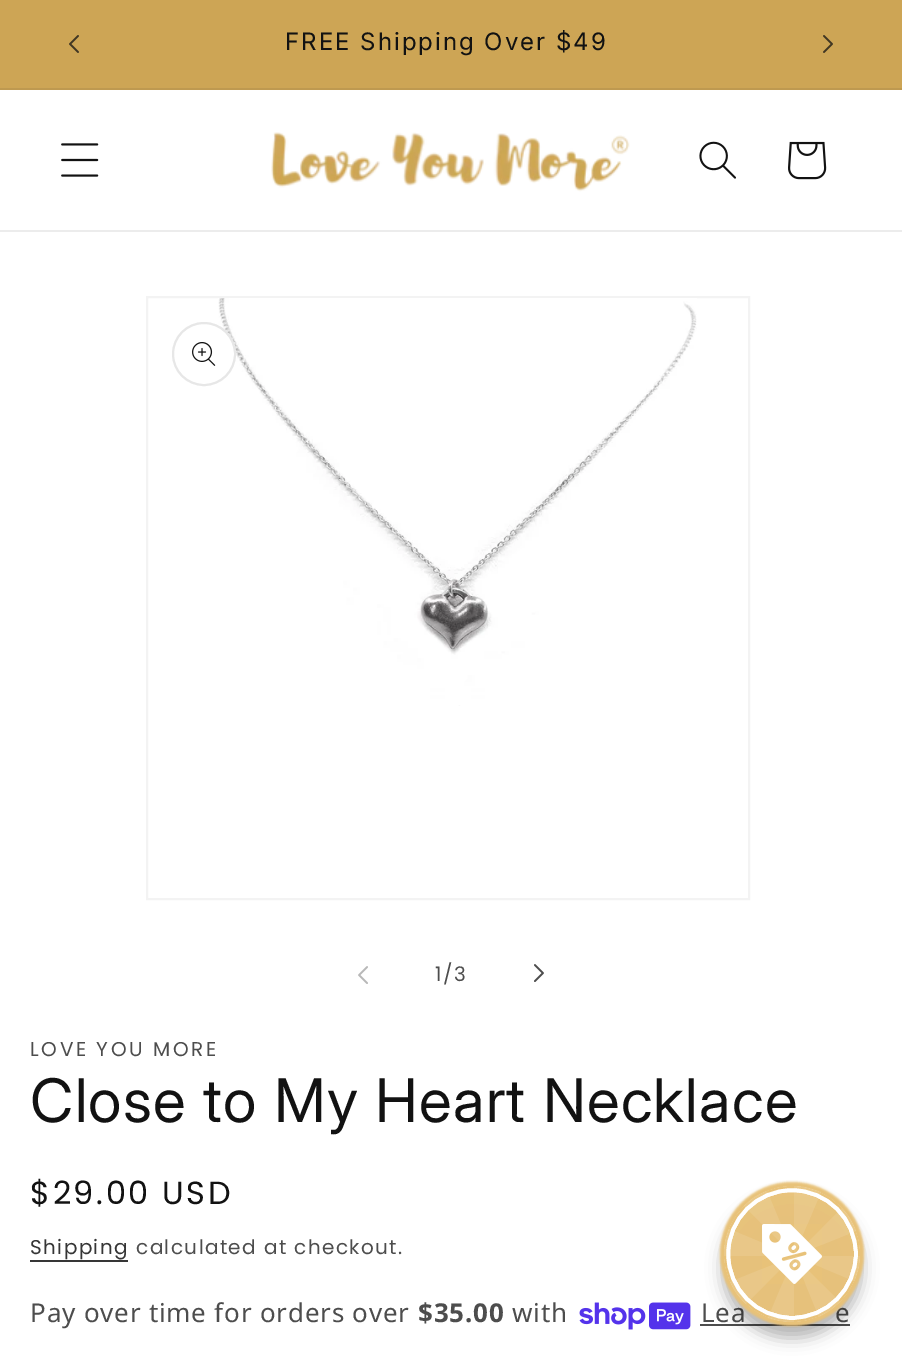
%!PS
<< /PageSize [902 1363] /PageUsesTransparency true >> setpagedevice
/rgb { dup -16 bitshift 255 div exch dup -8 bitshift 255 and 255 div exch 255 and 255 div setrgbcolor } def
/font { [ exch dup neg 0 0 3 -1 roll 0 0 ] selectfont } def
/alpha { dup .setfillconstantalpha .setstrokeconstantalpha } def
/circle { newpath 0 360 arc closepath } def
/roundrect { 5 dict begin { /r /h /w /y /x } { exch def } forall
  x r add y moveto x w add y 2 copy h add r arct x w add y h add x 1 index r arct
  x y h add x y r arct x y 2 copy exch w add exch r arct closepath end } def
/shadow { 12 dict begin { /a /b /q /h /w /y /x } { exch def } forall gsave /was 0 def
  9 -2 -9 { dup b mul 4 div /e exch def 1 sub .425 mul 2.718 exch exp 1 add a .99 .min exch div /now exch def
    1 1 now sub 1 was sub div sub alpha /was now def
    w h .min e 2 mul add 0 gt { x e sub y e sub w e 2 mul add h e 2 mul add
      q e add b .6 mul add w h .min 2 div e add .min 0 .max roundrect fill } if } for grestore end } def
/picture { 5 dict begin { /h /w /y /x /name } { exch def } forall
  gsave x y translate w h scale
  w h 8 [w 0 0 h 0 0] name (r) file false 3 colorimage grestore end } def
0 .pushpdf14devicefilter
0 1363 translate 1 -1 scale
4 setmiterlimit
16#FFFFFF rgb
0 0 902 1363 rectfill
16#CDA555 rgb
0 0 902 88 rectfill
16#BE9950 rgb
0 88 902 2 rectfill
(pic1.raw) 69 35 10 18 picture
/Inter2-Regular 24 font
16#121212 rgb
285 50 moveto 2 0 (FREE Shipping Over $49) ashow
(pic2.raw) 823 35 10 18 picture
16#ECECEC rgb
0 230 902 2 rectfill
(pic3.raw) 61 143 38 34 picture
(pic4.raw) 271 132 359 60 picture
(pic5.raw) 699 141 37 38 picture
(pic6.raw) 788 141 39 39 picture
16#F3F3F3 rgb
2 setlinewidth
147 297 602 602 rectstroke
(pic8.raw) 218 298 479 408 picture
16#FFFFFF rgb
204 354 32 circle fill
0.1 alpha
16#121212 rgb
204 354 31 circle stroke
1 alpha
(pic7.raw) 192 342 24 24 picture
(pic9.raw) 358 966 10 18 picture
/Poppins-Regular 20 font
16#4D4D4D rgb
435 981 moveto 1.4 0 (1/3) ashow
(pic10.raw) 534 964 10 18 picture
30 1056 moveto 2.6 0 (LOVE YOU MORE) ashow
/Inter-Regular 60 font
16#121212 rgb
30 1122 moveto 1.2 0 (Close to My Heart Necklace) ashow
/Poppins-Regular 32 font
30 1204 moveto 2.6 0 ($29.00 USD) ashow
/Poppins-Regular 20 font
16#363636 rgb
30 1254 moveto 1.4 0 (Shipping) ashow
30 1260 98 2 rectfill
16#4D4D4D rgb
136 1254 moveto 1.4 0 (calculated at checkout.) ashow
/NotoSans-Regular 26 font
30 1322 moveto 0.8 0 (Pay over time for orders over) ashow
/NotoSans-Bold 26 font
418 1322 moveto 0.8 0 ($35.00) ashow
/NotoSans-Regular 26 font
512 1322 moveto 0.8 0 (with) ashow
(pic11.raw) 579 1302 112 28 picture
701 1322 moveto 0.8 0 (Lea) ashow
835 1322 moveto 0.8 0 (e) ashow
700 1324 150 2 rectfill
16#000000 rgb
722 1198 140 140 70 8 0.3 shadow
16#E8C279 rgb
720 1182 144 144 72 1 1 shadow
16#FFFFFF rgb
6 setlinewidth
792 1254 65 circle stroke
792 1254 65 circle stroke
16#E8C279 rgb
2 setlinewidth
792 1254 67 circle stroke
792 1254 69 circle stroke
0.1 alpha
16#FFFFFF rgb
767 1191 moveto 758 1194 750 1199 744 1206 curveto 794 1256 lineto 729 1229 lineto 725 1237 724 1247 724 1256 curveto 794 1256 lineto 730 1282 lineto 734 1291 739 1298 746 1304 curveto 794 1256 lineto 768 1318 lineto 776 1321 785 1322 794 1322 curveto 794 1256 lineto 819 1317 lineto 827 1313 834 1308 840 1302 curveto 794 1256 lineto 854 1281 lineto 858 1274 860 1265 860 1256 curveto 794 1256 lineto 856 1231 lineto 853 1222 848 1214 842 1208 curveto 794 1256 lineto 821 1192 lineto 813 1189 804 1186 794 1186 curveto 794 1256 lineto closepath fill
1 alpha
(pic12.raw) 762 1224 60 60 picture
.poppdf14devicefilter showpage
